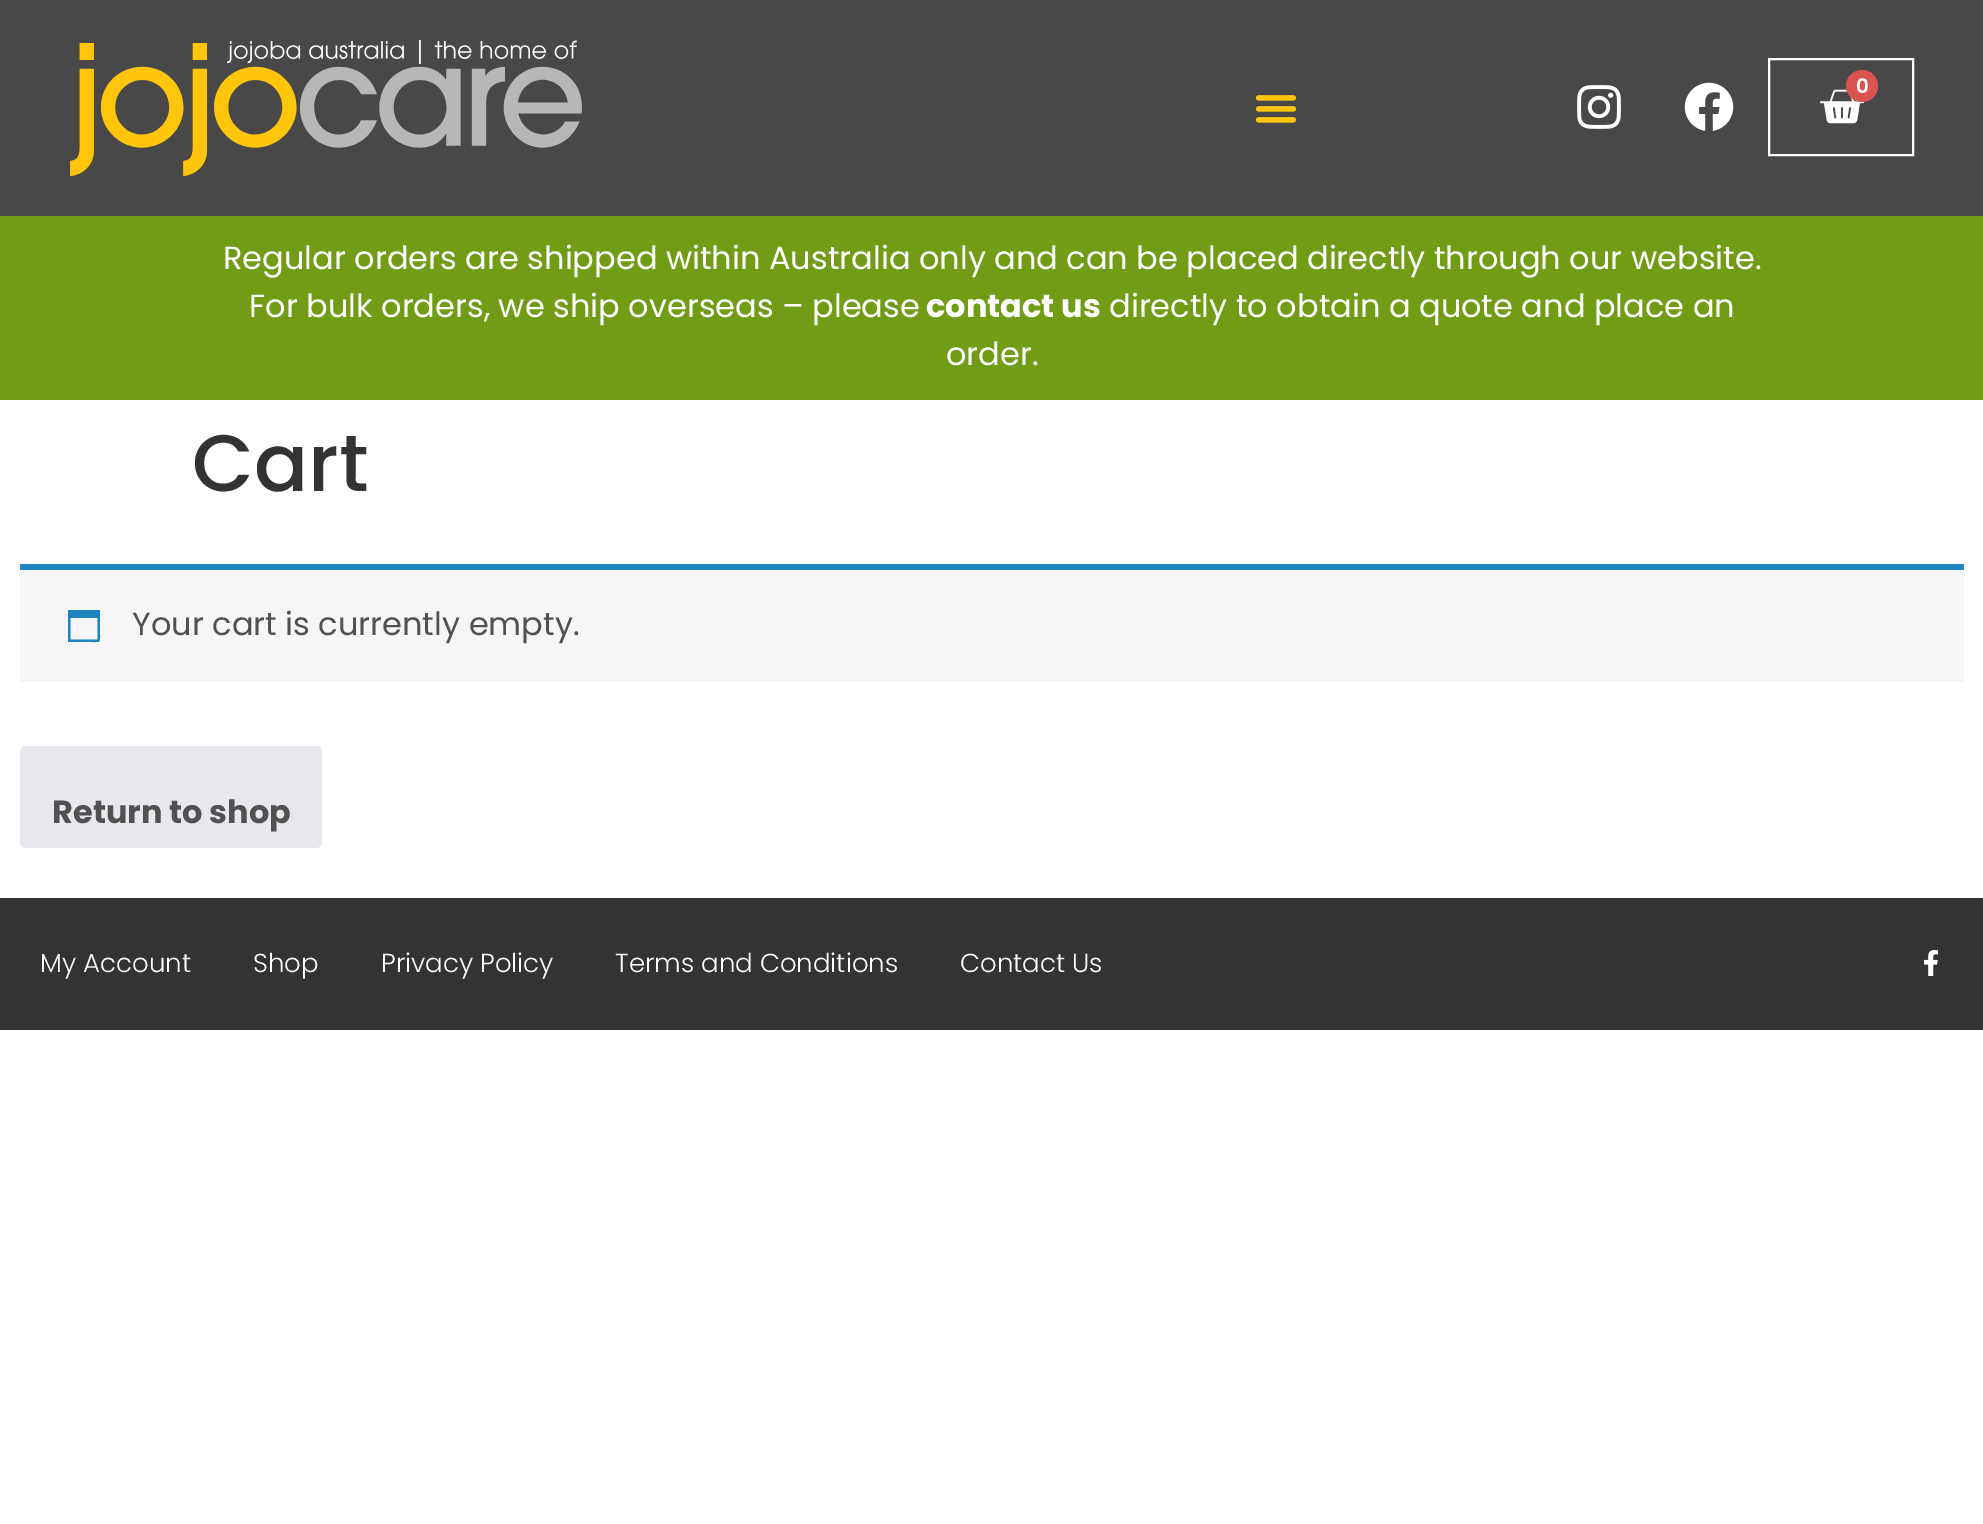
%!PS
<< /PageSize [1983 1524] >> setpagedevice
/rgb { dup -16 bitshift 255 div exch dup -8 bitshift 255 and 255 div exch 255 and 255 div setrgbcolor } def
/font { [ exch dup neg 0 0 3 -1 roll 0 0 ] selectfont } def
/text { moveto show } def
/circle { newpath 0 360 arc closepath } def
/roundrect { 5 dict begin { /r /h /w /y /x } { exch def } forall
  x r add y moveto x w add y 2 copy h add r arct x w add y h add x 1 index r arct
  x y h add x y r arct x y 2 copy exch w add exch r arct closepath end } def
/picture { 5 dict begin { /h /w /y /x /name } { exch def } forall
  gsave x y translate w h scale
  w h 8 [w 0 0 h 0 0] name (r) file false 3 colorimage grestore end } def
0 1524 translate 1 -1 scale
4 setmiterlimit
/s1 { /Poppins-SemiBold 20 font 16#FFFFFF rgb } def
/s2 { /Poppins-Regular 32 font 16#FFFFFF rgb } def
/s3 { /Poppins-Bold 32 font 16#FFFFFF rgb } def
/s4 { /Poppins-Medium 80 font 16#333333 rgb } def
/s5 { /Poppins-Regular 32 font 16#515151 rgb } def
/s6 { /Poppins-Bold 32 font 16#515151 rgb } def
/s7 { /Poppins-Light 26 font 16#FFFFFF rgb } def
16#FFFFFF rgb
0 0 1983 1524 rectfill
16#484848 rgb
0 0 1983 216 rectfill
(pic1.raw) 70 40 512 136 picture
(pic2.raw) 1577 85 44 44 picture
(pic3.raw) 1684 82 50 49 picture
16#FFFFFF rgb
2 setlinewidth
1769 59 144 96 rectstroke
(pic4.raw) 1820 89 44 35 picture
16#D9534F rgb
1862 86 16 circle fill
s1
(0) 1856 93 text
(pic5.raw) 1255 95 42 28 picture
16#709D15 rgb
0 216 1983 184 rectfill
s2
(Regular orders are shipped within Australia only and can be placed directly through our website.) 223 269 text
(For bulk orders, we ship overseas – please) 249 317 text
s3
(contact us) 926 317 text
s2
(directly to obtain a quote and place an) 1109 317 text
(order.) 946 365 text
s4
(Cart) 192 491 text
16#F6F5F8 rgb
20 570 1944 112 rectfill
16#1E85BE rgb
20 564 1944 6 rectfill
97.5 618 moveto 70.5 618 lineto 70.5 639.5 lineto 97.5 639.5 lineto closepath 100 610 moveto 100 634.5 lineto 100 642.5 100.5 642 92.5 642 curveto 68 642 lineto 68 610 lineto closepath fill
s5
(Your cart is currently empty.) 132 635 text
16#E9E6ED rgb
20 746 302 102 6 roundrect fill
s6
(Return to shop) 52 823 text
16#333333 rgb
0 898 1983 132 rectfill
s7
(My Account) 40 972 text
(Shop) 253 972 text
(Privacy Policy) 381 972 text
(Terms and Conditions) 615 972 text
(Contact Us) 960 972 text
(pic6.raw) 1924 950 14 26 picture
showpage
